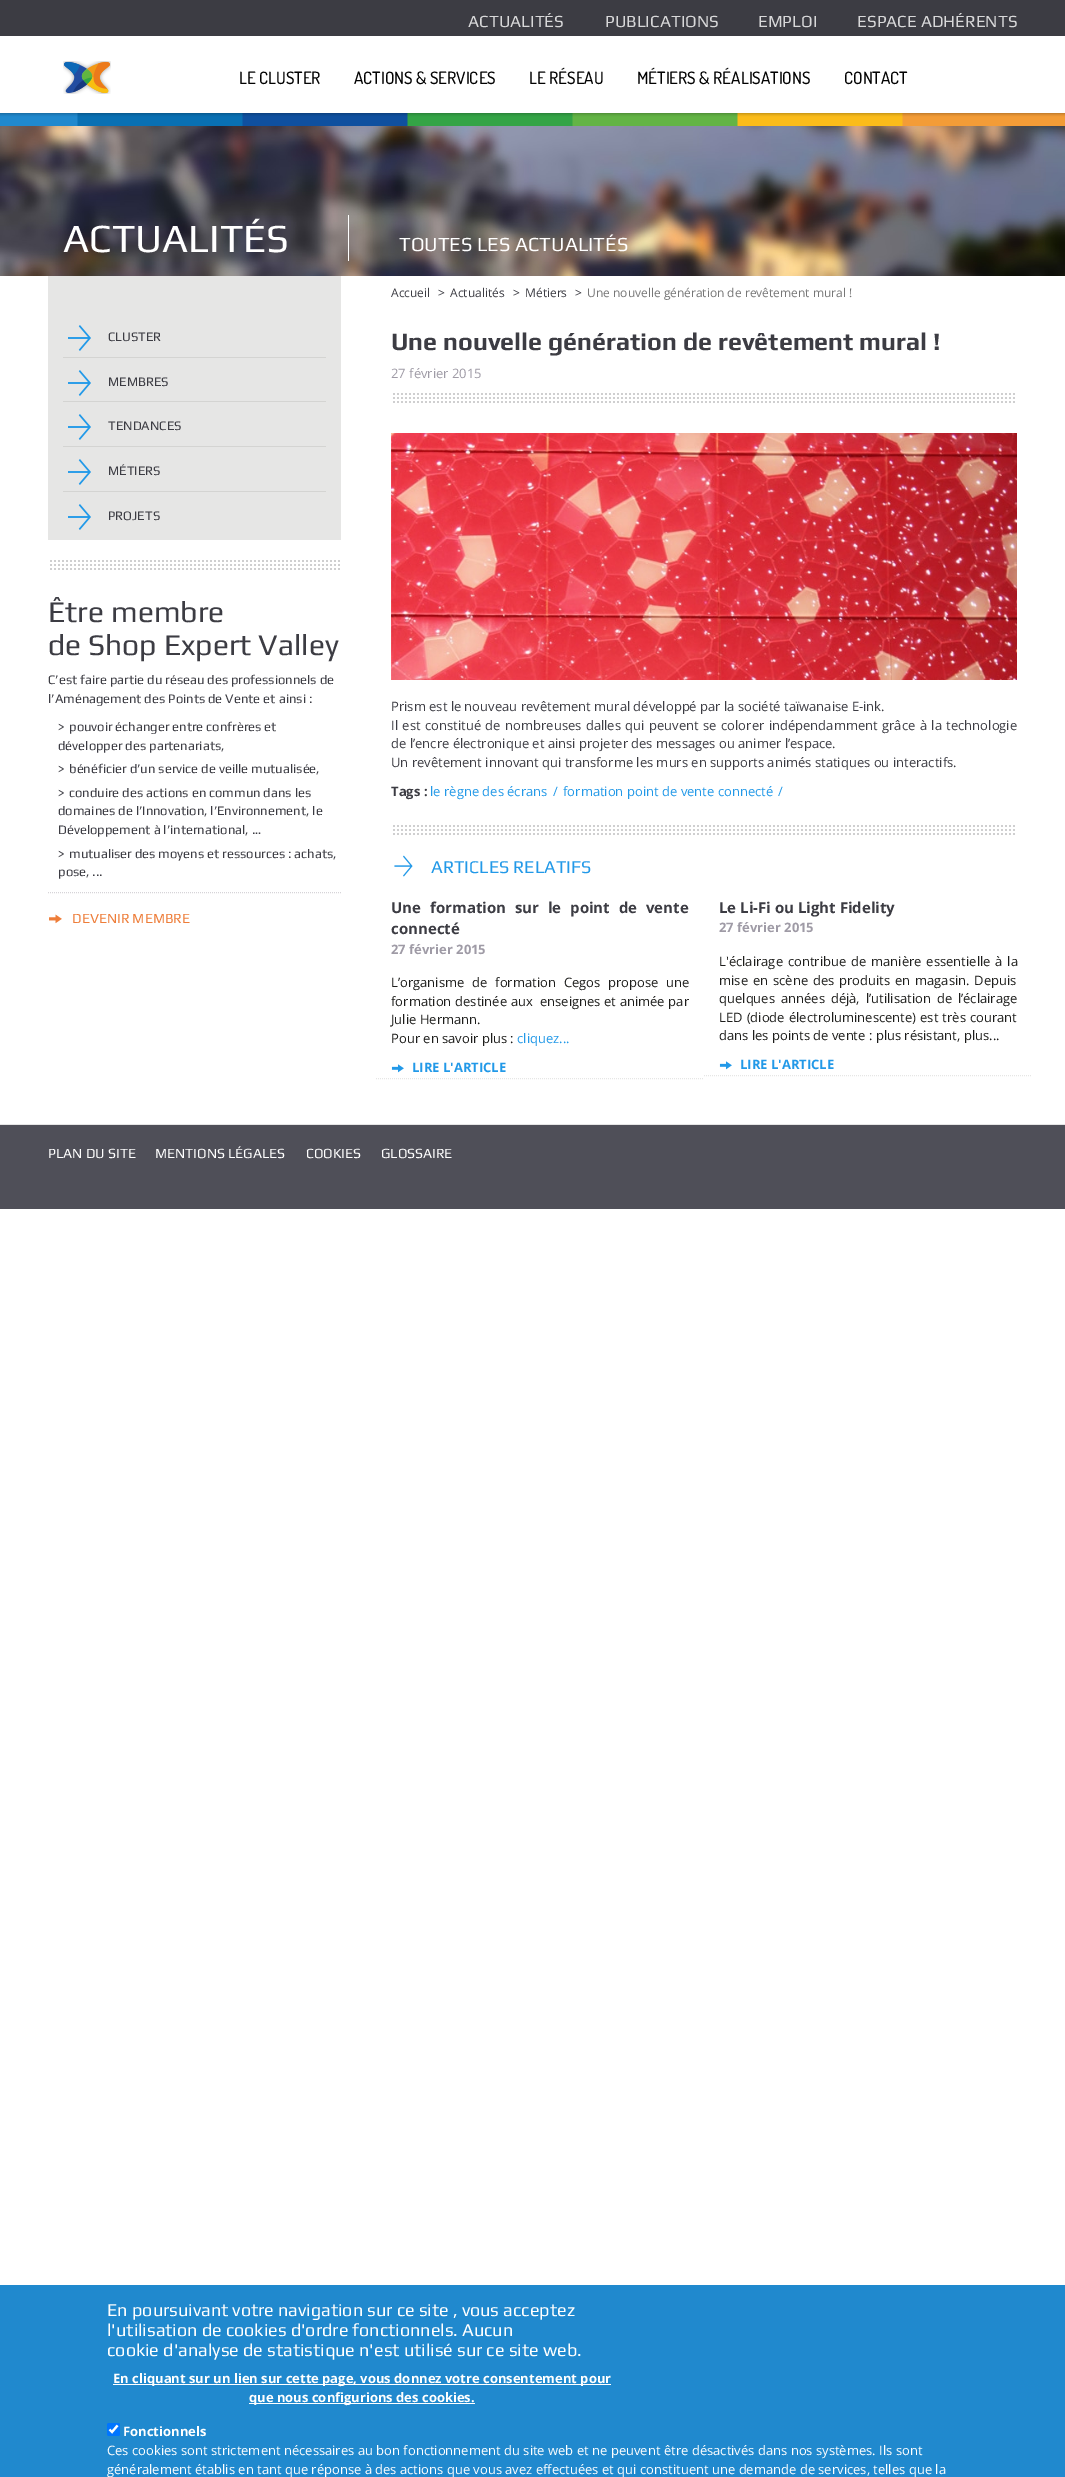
%!PS
<< /PageSize [1065 2477] >> setpagedevice
/rgb { dup -16 bitshift 255 div exch dup -8 bitshift 255 and 255 div exch 255 and 255 div setrgbcolor } def
/font { [ exch dup neg 0 0 3 -1 roll 0 0 ] selectfont } def
/text { moveto show } def
/roundrect { 5 dict begin { /r /h /w /y /x } { exch def } forall
  x r add y moveto x w add y 2 copy h add r arct x w add y h add x 1 index r arct
  x y h add x y r arct x y 2 copy exch w add exch r arct closepath end } def
/picture { 5 dict begin { /h /w /y /x /name } { exch def } forall
  gsave x y translate w h scale
  w h 8 [w 0 0 h 0 0] name (r) file false 3 colorimage grestore end } def
0 2477 translate 1 -1 scale
4 setmiterlimit
/s1 { /Play-Regular 17 font 16#D8D8D9 rgb } def
/s2 { /Dosis-Medium 17 font 16#020202 rgb } def
/s3 { /Play-Regular 40 font 16#FFFFFF rgb } def
/s4 { /Play-Regular 20 font 16#FFFFFF rgb } def
/s5 { /Play-Regular 13 font 16#3C3C43 rgb } def
/s6 { /Play-Regular 30 font 16#3C3C43 rgb } def
/s7 { /Play-Regular 14 font 16#EE7D39 rgb } def
/s8 { /OpenSans-Regular 12 font 16#3C3C43 rgb } def
/s9 { /OpenSans-Regular 12 font 16#777777 rgb } def
/s10 { /Play-Bold 25 font 16#3C3C43 rgb } def
/s11 { /OpenSans-Regular 13 font 16#9F9BA6 rgb } def
/s12 { /OpenSans-Regular 13 font 16#3C3C43 rgb } def
/s13 { /OpenSans-Bold 13 font 16#3C3C43 rgb } def
/s14 { /OpenSans-Regular 13 font 16#2299E8 rgb } def
/s15 { /Play-Regular 18 font 16#2299E8 rgb } def
/s16 { /OpenSans-Bold 15 font 16#3C3C43 rgb } def
/s17 { /OpenSans-Bold 13 font 16#9F9BA6 rgb } def
/s18 { /OpenSans-Regular 13 font 16#1D1D1B rgb } def
/s19 { /OpenSans-Bold 13 font 16#2299E8 rgb } def
/s20 { /Play-Regular 14 font 16#FFFFFF rgb } def
/s21 { /Play-Regular 18 font 16#FFFFFF rgb } def
/s22 { /OpenSans-Bold 13 font 16#FFFFFF rgb } def
/s23 { /OpenSans-Regular 13 font 16#FFFFFF rgb } def
16#FFFFFF rgb
0 0 1065 2477 rectfill
16#3C3C43 rgb
0 0 1065 36 rectfill
s1
(ACTUALITÉS) 468 27 text
(PUBLICATIONS) 605 27 text
(EMPLOI) 758 27 text
(ESPACE ADHÉRENTS) 857 27 text
(pic1.raw) 63 61 48 33 picture
s2
(LE CLUSTER) 239 84 text
(ACTIONS & SERVICES) 354 84 text
(LE RÉSEAU) 529 84 text
(MÉTIERS & RÉALISATIONS) 637 84 text
(CONTACT) 844 84 text
(pic2.raw) 0 113 1065 13 picture
(pic3.raw) 0 126 1065 150 picture
s3
(ACTUALITÉS) 63 252 text
348 215 1 46 rectfill
s4
(TOUTES LES ACTUALITÉS) 399 251 text
16#E6E6E5 rgb
48 276 293 264 rectfill
(pic4.raw) 68 325 23 26 picture
16#D4D4D2 rgb
63 357 263 1 rectfill
s5
(CLUSTER) 108 341 text
(pic4.raw) 68 370 23 26 picture
16#D4D4D2 rgb
63 401 263 1 rectfill
s5
(MEMBRES) 108 386 text
(pic4.raw) 68 414 23 26 picture
16#D4D4D2 rgb
63 446 263 1 rectfill
s5
(TENDANCES) 108 430 text
(pic4.raw) 68 459 23 26 picture
16#D4D4D2 rgb
63 491 263 1 rectfill
s5
(MÉTIERS) 108 475 text
(pic4.raw) 68 504 23 26 picture
(PROJETS) 108 520 text
(pic5.raw) 50 560 290 10 picture
s6
(Être membre) 48 622 text
(de Shop Expert Valley) 48 655 text
s5
(C’est faire partie du réseau des professionnels de) 48 684 text
(l’Aménagement des Points de Vente et ainsi :) 48 703 text
(>) 58 731 text
(pouvoir échanger entre confrères et) 69 731 text
(développer des partenariats,) 58 750 text
(>) 58 773 text
(bénéficier d’un service de veille mutualisée,) 69 773 text
(>) 58 797 text
(conduire des actions en commun dans les) 69 797 text
(domaines de l’Innovation, l’Environnement, le) 58 815 text
(Développement à l’international, …) 58 834 text
(>) 58 858 text
(mutualiser des moyens et ressources : achats,) 69 858 text
(pose, ...) 58 876 text
16#D6D4D8 rgb
[1 1] 0 setdash
48 892.5 moveto 341 892.5 lineto stroke
(pic6.raw) 49 914 13 10 picture
s7
(DEVENIR MEMBRE) 72 923 text
s8
(Accueil) 391 297 text
(>) 438 297 text
(Actualités) 450 297 text
(>) 513 297 text
(Métiers) 525 297 text
(>) 575 297 text
s9
(Une nouvelle génération de revêtement mural !) 587 297 text
s10
(Une nouvelle génération de revêtement mural !) 391 350 text
s11
(27 février 2015) 391 378 text
(pic7.raw) 393 393 622 10 picture
(pic8.raw) 391 433 626 247 picture
s12
(Prism est le nouveau revêtement mural développé par la société taïwanaise E-ink.) 391 711 text
391 730 moveto 1.1 0 32 (Il est constitué de nombreuses dalles qui peuvent se colorer indépendamment grâce à la technologie) widthshow
(de l’encre électronique et ainsi projeter des messages ou animer l’espace.) 391 748 text
(Un revêtement innovant qui transforme les murs en supports animés statiques ou interactifs.) 391 767 text
s13
(Tags :) 391 796 text
s14
(le règne des écrans) 430 796 text
(/) 553 796 text
(formation point de vente connecté) 563 796 text
(/) 778 796 text
(pic7.raw) 393 825 622 10 picture
(pic9.raw) 394 855 19 22 picture
s15
(ARTICLES RELATIFS) 431 873 text
16#E6E6E5 rgb
376 1078.5 moveto 704 1078.5 lineto stroke
/OpenSans-Bold 15 font
16#3C3C43 rgb
391 913 moveto 5 0 32 (Une formation sur le point de vente) widthshow
(connecté) 391 934 text
s17
(27 février 2015) 391 954 text
/OpenSans-Regular 13 font
16#1D1D1B rgb
391 987 moveto 4.5 0 32 (L’organisme de formation Cegos propose une) widthshow
391 1006 moveto 0.25 0 32 (formation destinée aux  enseignes et animée par) widthshow
(Julie Hermann.) 391 1024 text
(Pour en savoir plus :) 391 1043 text
s14
(cliquez...) 517 1043 text
(pic10.raw) 391 1064 13 9 picture
s19
(LIRE L'ARTICLE) 412 1072 text
16#E6E6E5 rgb
704 1075.5 moveto 1032 1075.5 lineto stroke
s16
(Le Li-Fi ou Light Fidelity) 719 913 text
s17
(27 février 2015) 719 932 text
/OpenSans-Regular 13 font
16#1D1D1B rgb
719 966 moveto 1.5 0 32 (L'éclairage contribue de manière essentielle à la) widthshow
719 985 moveto 1.5 0 32 (mise en scène des produits en magasin. Depuis) widthshow
719 1003 moveto 2.5 0 32 (quelques années déjà, l’utilisation de l’éclairage) widthshow
719 1022 moveto 0.75 0 32 (LED \(diode électroluminescente\) est très courant) widthshow
(dans les points de vente : plus résistant, plus...) 719 1040 text
(pic10.raw) 719 1061 13 9 picture
s19
(LIRE L'ARTICLE) 740 1069 text
16#4F4F58 rgb
0 1125 1065 84 rectfill
16#E5E5E5 rgb
0 1124 1065 1 rectfill
s20
(PLAN DU SITE) 48 1158 text
(MENTIONS LÉGALES) 155 1158 text
(COOKIES) 306 1158 text
(GLOSSAIRE) 381 1158 text
16#2089CE rgb
0 2285 1065 192 rectfill
s21
(En poursuivant votre navigation sur ce site , vous acceptez) 107 2316 text
(l'utilisation de cookies d'ordre fonctionnels. Aucun) 107 2336 text
(cookie d'analyse de statistique n'est utilisé sur ce site web.) 107 2356 text
113 2384 498 1 rectfill
s22
(En cliquant sur un lien sur cette page, vous donnez votre consentement pour) 113 2383 text
249 2403 226 1 rectfill
(que nous configurions des cookies.) 249 2402 text
16#0075FF rgb
107 2423 13 13 2 roundrect fill
16#FFFFFF rgb
2.1 setlinewidth
[] 0 setdash
109.5 2429.5 moveto 112 2432 lineto 117.5 2425.5 lineto stroke
(Fonctionnels) 123 2436 text
s23
(Ces cookies sont strictement nécessaires au bon fonctionnement du site web et ne peuvent être désactivés dans nos systèmes. Ils sont) 107 2455 text
(généralement établis en tant que réponse à des actions que vous avez effectuées et qui constituent une demande de services, telles que la) 107 2474 text
showpage
